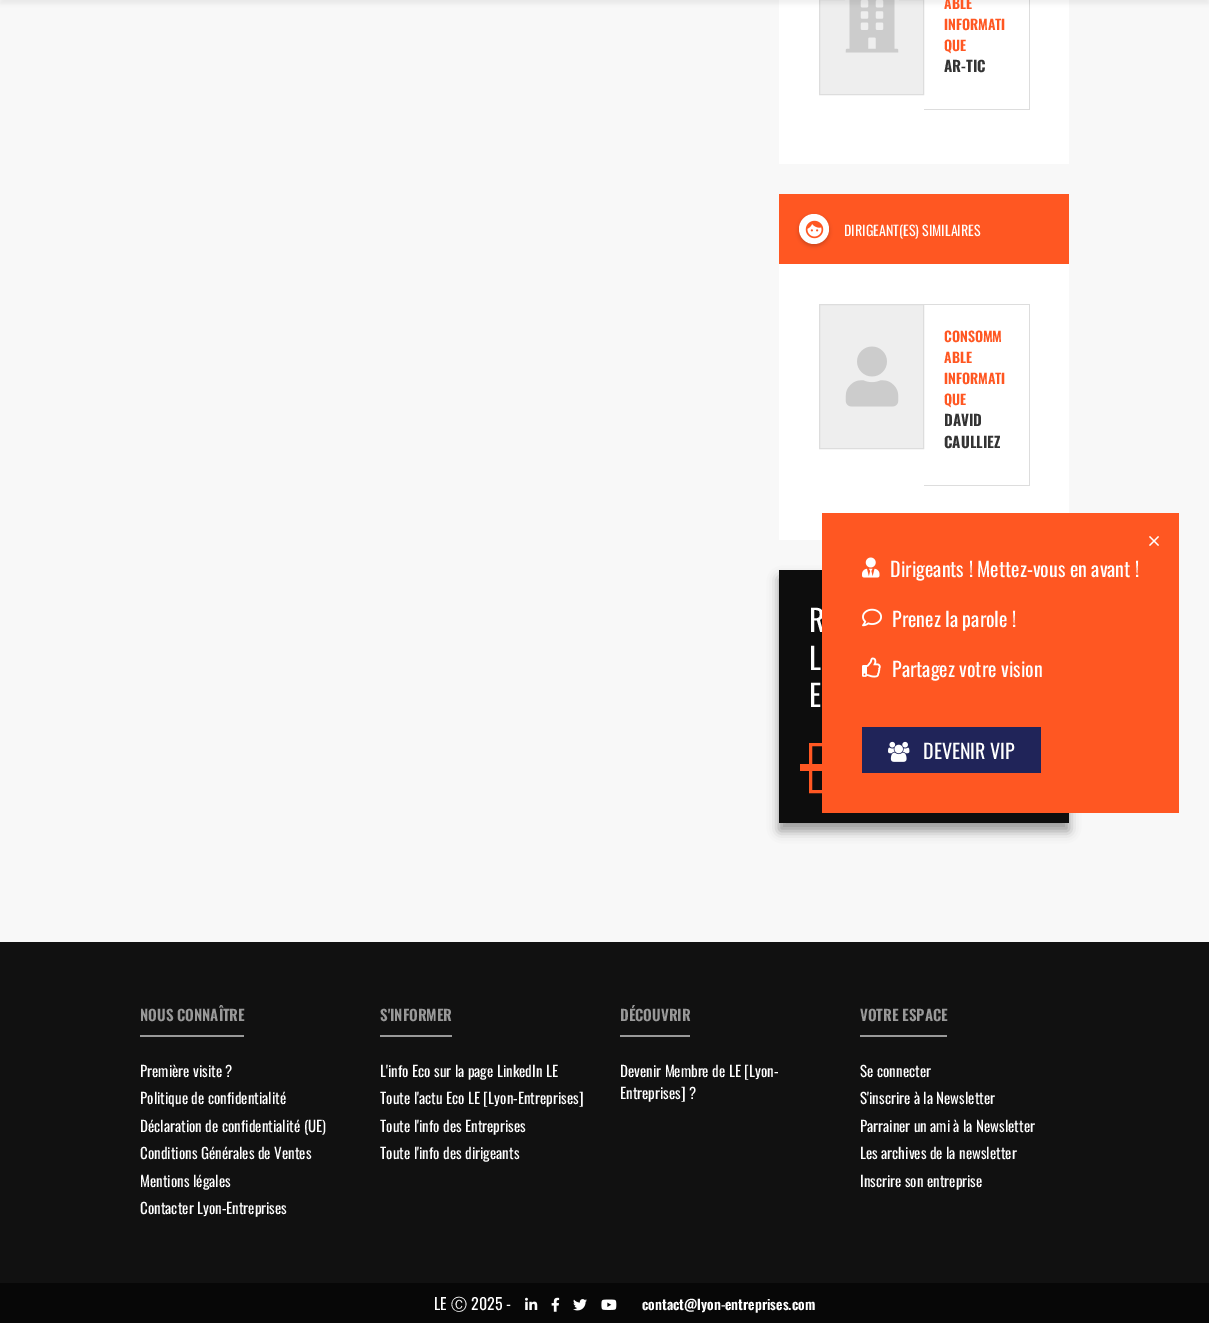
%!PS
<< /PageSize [1209 1325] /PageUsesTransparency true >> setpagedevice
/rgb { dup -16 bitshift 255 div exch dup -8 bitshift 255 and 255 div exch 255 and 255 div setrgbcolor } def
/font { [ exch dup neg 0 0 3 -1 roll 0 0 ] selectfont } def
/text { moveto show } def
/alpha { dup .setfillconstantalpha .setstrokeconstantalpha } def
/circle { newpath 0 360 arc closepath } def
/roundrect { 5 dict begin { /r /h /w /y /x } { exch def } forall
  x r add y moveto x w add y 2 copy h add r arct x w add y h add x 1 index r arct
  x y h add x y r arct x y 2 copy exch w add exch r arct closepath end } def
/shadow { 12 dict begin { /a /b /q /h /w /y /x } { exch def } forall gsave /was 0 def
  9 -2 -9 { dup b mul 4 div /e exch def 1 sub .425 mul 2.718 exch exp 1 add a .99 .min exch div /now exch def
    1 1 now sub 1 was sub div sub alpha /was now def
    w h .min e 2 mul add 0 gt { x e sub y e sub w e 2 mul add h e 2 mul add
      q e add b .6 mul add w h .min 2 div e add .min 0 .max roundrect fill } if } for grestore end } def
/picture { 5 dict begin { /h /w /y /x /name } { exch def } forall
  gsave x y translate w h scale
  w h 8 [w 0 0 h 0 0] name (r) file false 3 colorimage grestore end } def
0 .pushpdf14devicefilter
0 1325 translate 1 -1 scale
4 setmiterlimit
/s1 { /Oswald-SemiBold 14 font 16#FF5722 rgb } def
/s2 { /Oswald-Bold 15 font 16#333333 rgb } def
/s3 { /Oswald-Regular 14 font 16#FFFFFF rgb } def
/s4 { /Oswald-Regular 30 font 16#FFFFFF rgb } def
/s5 { /Oswald-Regular 20 font 16#FFFFFF rgb } def
/s6 { /Oswald-SemiBold 15 font 16#999999 rgb } def
/s7 { /Oswald-Regular 15 font 16#FFFFFF rgb } def
/s8 { /Oswald-Regular 16 font 16#FFFFFF rgb } def
/s9 { /WenQuanYiZenHei-Medium 16 font 16#FFFFFF rgb } def
/s10 { /Oswald-SemiBold 14 font 16#FFFFFF rgb } def
16#FFFFFF rgb
0 0 1209 1325 rectfill
16#F8F8F8 rgb
0 0 1209 942 rectfill
16#FFFFFF rgb
779 0 290 164 rectfill
16#EEEEEE rgb
819.5 -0.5 moveto 923.5 -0.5 lineto 923.5 94.5 lineto 819.5 94.5 lineto closepath gsave fill grestore
16#DDDDDD rgb
stroke
(pic1.raw) 845 0 54 53 picture
1029 0 1 110 rectfill
16#000000 rgb
0 -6 1209 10 0 2 0.06 shadow
16#DDDDDD rgb
924 109 106 1 rectfill
s1
(ABLE) 944 9 text
(INFORMATI) 944 30 text
(QUE) 944 51 text
s2
(AR-TIC) 944 72 text
16#FFFFFF rgb
779 264 290 276 rectfill
16#FF5722 rgb
779 194 290 70 rectfill
16#000000 rgb
799 216 30 30 15 2 0.2 shadow
16#FFFFFF rgb
814 229 15 circle fill
(pic2.raw) 805 220 19 19 picture
s3
(DIRIGEANT\(ES\) SIMILAIRES) 844 236 text
16#EEEEEE rgb
819.5 304.5 moveto 923.5 304.5 lineto 923.5 448.5 lineto 819.5 448.5 lineto closepath gsave fill grestore
16#DDDDDD rgb
stroke
(pic3.raw) 845 346 54 61 picture
924 304 106 1 rectfill
1029 304 1 182 rectfill
924 485 106 1 rectfill
s1
(CONSOMM) 944 342 text
(ABLE) 944 363 text
(INFORMATI) 944 384 text
(QUE) 944 405 text
s2
(DAVID) 944 426 text
(CAULLIEZ) 944 448 text
16#000000 rgb
779 578 290 253 0 5.5 0.38 shadow
16#0D0D0D rgb
779 570 290 253 rectfill
s4
(R) 809 632 text
(L) 809 670 text
(E) 809 707 text
16#FF5722 rgb
3 setlinewidth
810.5 744.5 138 47 rectstroke
800 764 25 7 rectfill
822 513 357 300 rectfill
(pic4.raw) 1149 536 10 10 picture
(pic5.raw) 862 557 18 21 picture
s5
(Dirigeants ! Mettez-vous en avant !) 890 577 text
(pic6.raw) 862 608 20 19 picture
(Prenez la parole !) 892 627 text
(pic7.raw) 862 657 19 21 picture
(Partagez votre vision) 892 677 text
16#202459 rgb
862 727 179 46 rectfill
(pic8.raw) 888 741 22 21 picture
s5
(DEVENIR VIP) 923 759 text
16#111111 rgb
0 942 1209 341 rectfill
s6
(NOUS CONNAÎTRE) 140 1021 text
140 1035 104 2 rectfill
s7
(Première visite ?) 140 1077 text
(Politique de confidentialité) 140 1104 text
(Déclaration de confidentialité \(UE\)) 140 1132 text
(Conditions Générales de Ventes) 140 1159 text
(Mentions légales) 140 1187 text
(Contacter Lyon-Entreprises) 140 1214 text
s6
(S'INFORMER) 380 1021 text
380 1035 72 2 rectfill
s7
(L'info Eco sur la page LinkedIn LE) 380 1077 text
(Toute l'actu Eco LE [Lyon-Entreprises]) 380 1104 text
(Toute l'info des Entreprises) 380 1132 text
(Toute l'info des dirigeants) 380 1159 text
s6
(DÉCOUVRIR) 620 1021 text
620 1035 70 2 rectfill
s7
(Devenir Membre de LE [Lyon-) 620 1077 text
(Entreprises] ?) 620 1099 text
s6
(VOTRE ESPACE) 860 1021 text
860 1035 87 2 rectfill
s7
(Se connecter) 860 1077 text
(S'inscrire à la Newsletter) 860 1104 text
(Parrainer un ami à la Newsletter) 860 1132 text
(Les archives de la newsletter) 860 1159 text
(Inscrire son entreprise) 860 1187 text
16#070707 rgb
0 1283 1209 40 rectfill
s8
(LE) 434 1310 text
s9
(Ⓒ) 451 1310 text
s8
(2025 -) 471 1310 text
(pic9.raw) 525 1297 13 13 picture
(pic10.raw) 551 1297 9 15 picture
(pic11.raw) 573 1299 14 12 picture
(pic12.raw) 601 1299 16 11 picture
s10
(contact@lyon-entreprises.com) 642 1310 text
.poppdf14devicefilter showpage
